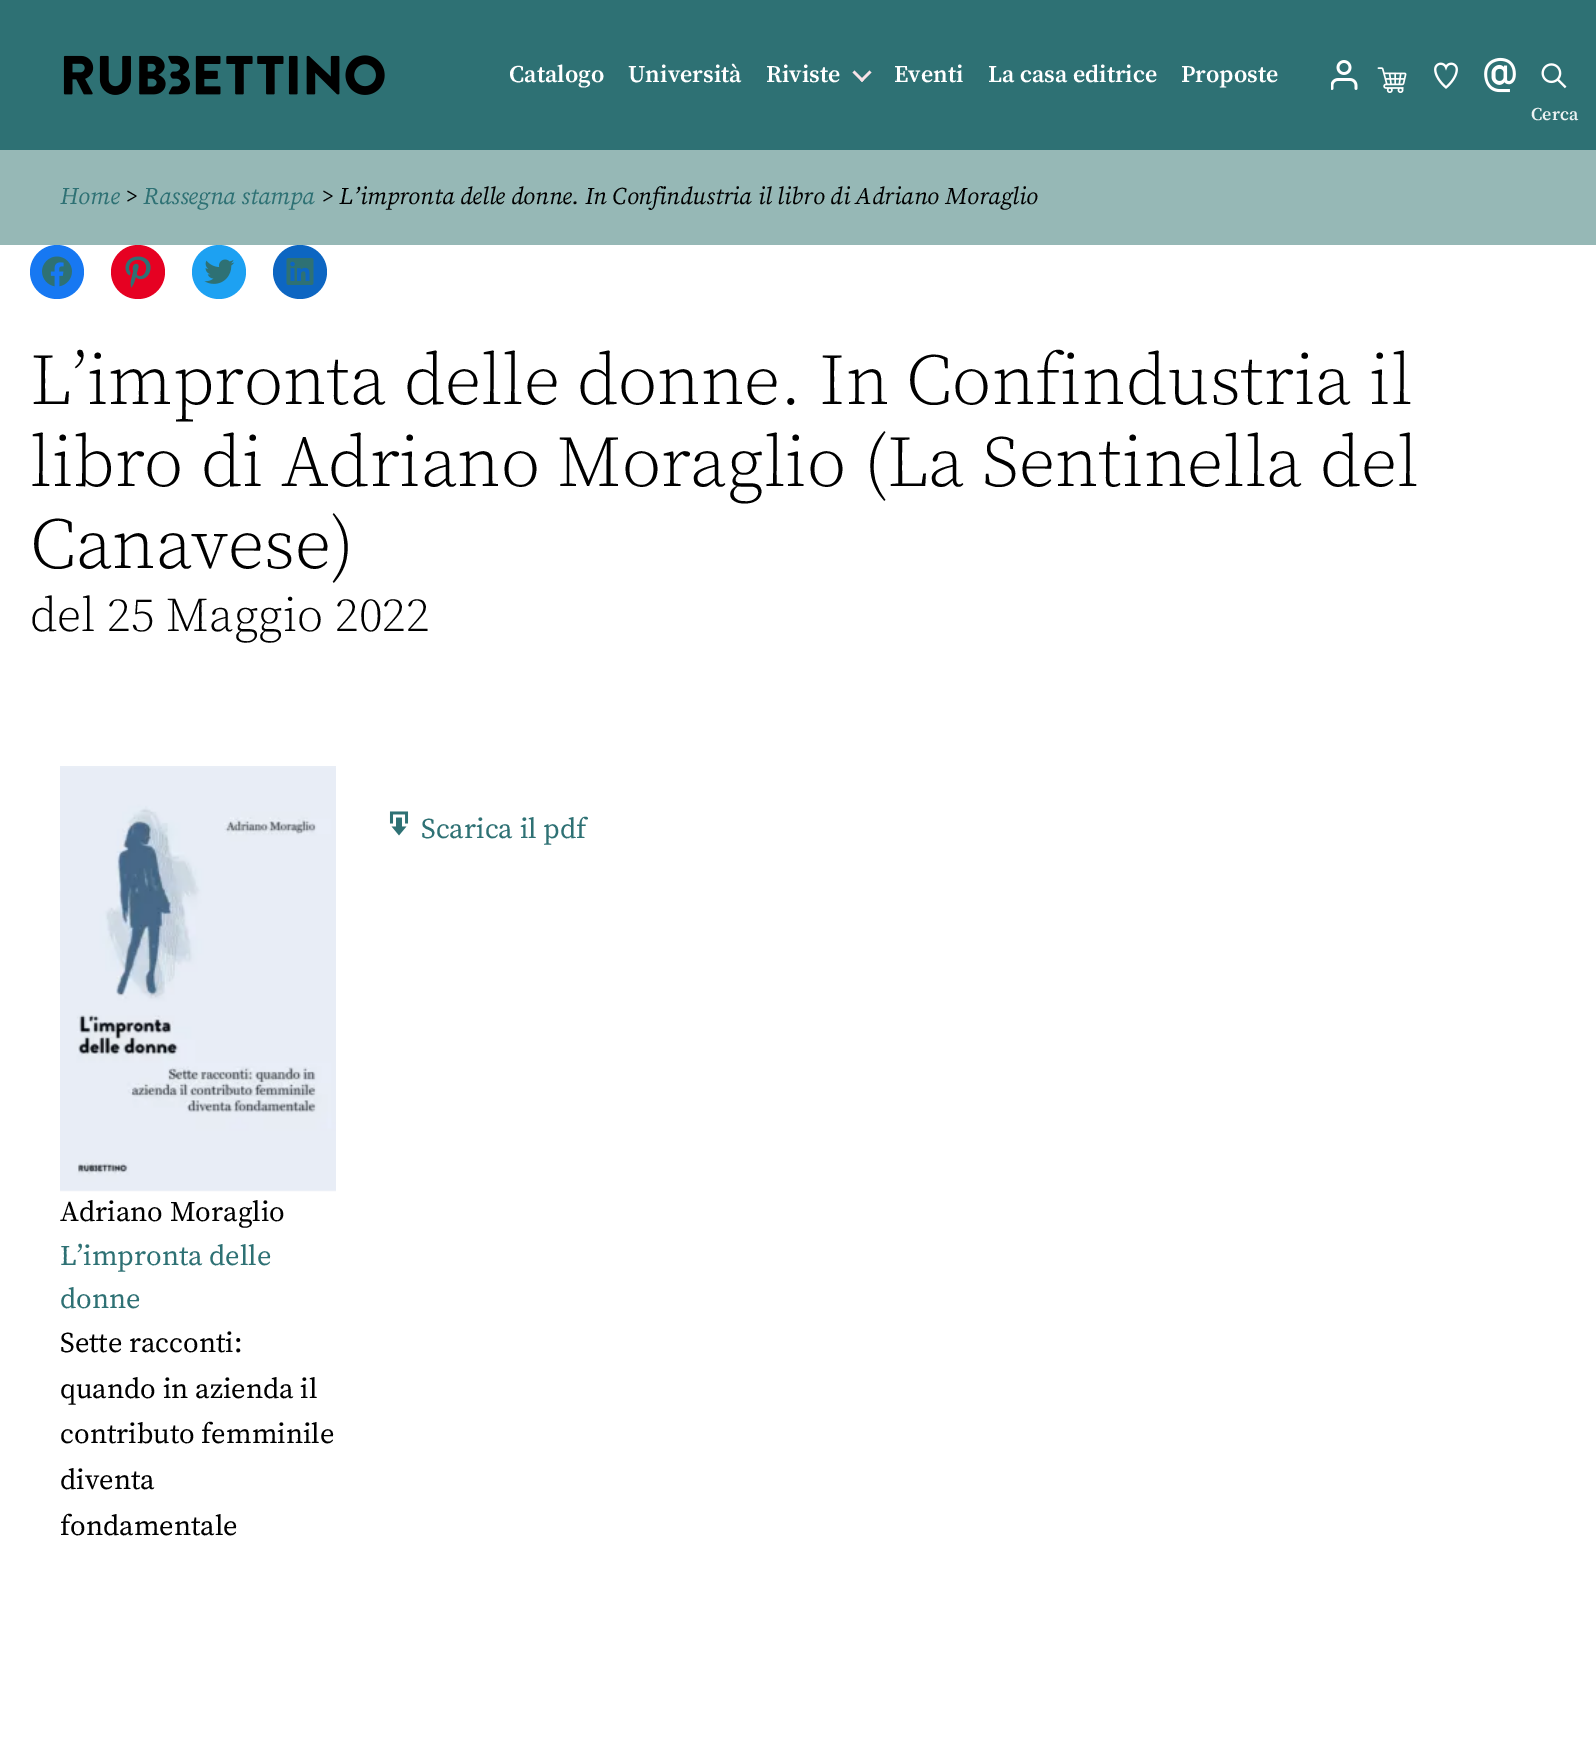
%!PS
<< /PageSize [1596 1745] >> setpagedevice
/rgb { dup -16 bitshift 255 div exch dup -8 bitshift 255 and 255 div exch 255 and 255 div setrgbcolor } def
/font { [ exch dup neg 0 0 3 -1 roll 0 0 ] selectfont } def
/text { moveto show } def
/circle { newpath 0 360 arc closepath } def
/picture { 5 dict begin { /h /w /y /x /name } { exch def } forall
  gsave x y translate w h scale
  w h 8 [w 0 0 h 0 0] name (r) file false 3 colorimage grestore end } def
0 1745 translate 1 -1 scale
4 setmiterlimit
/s1 { /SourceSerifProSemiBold-SemiBold 24 font 16#FFFFFF rgb } def
/s2 { /SourceSerifProSemiBold-SemiBold 18 font 16#ECF2F2 rgb } def
/s3 { /SourceSerifPro-Italic 24 font 16#2E7174 rgb } def
/s4 { /SourceSerifPro-Italic 24 font 16#000000 rgb } def
/s5 { /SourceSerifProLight-Light 72 font 16#000000 rgb } def
/s6 { /SourceSerifProLight-Light 48 font 16#000000 rgb } def
/s7 { /SourceSerifPro-Regular 28.5 font 16#2E7174 rgb } def
/s8 { /SourceSerifPro-Regular 28.5 font 16#000000 rgb } def
16#FFFFFF rgb
0 0 1596 1745 rectfill
16#2E7174 rgb
0 0 1596 150 rectfill
(pic1.raw) 63 55 322 40 picture
s1
(Catalogo) 509 82 text
(Università) 628 82 text
(Riviste) 766 82 text
16#F8E2E7 rgb
852.5 72.5 moveto 854.5 70.5 lineto 864 80 lineto 862 82 lineto closepath fill
860 80 moveto 869.5 70.5 lineto 871.5 72.5 lineto 862 82 lineto closepath fill
s1
(Eventi) 894 82 text
(La casa editrice) 988 82 text
(Proposte) 1181 82 text
(pic2.raw) 1331 60 27 30 picture
(pic3.raw) 1377 67 30 26 picture
(pic4.raw) 1434 62 24 27 picture
(pic5.raw) 1484 57 32 36 picture
(pic6.raw) 1541 63 26 26 picture
s2
(Cerca) 1531 120 text
16#96B8B6 rgb
0 150 1596 95 rectfill
s3
(Home) 60 204 text
s4
(>) 125 204 text
s3
(Rassegna stampa) 143 204 text
s4
(> L’impronta delle donne. In Confindustria il libro di Adriano Moraglio) 321 204 text
16#1778F2 rgb
57 272 27 circle fill
(pic7.raw) 42 256 30 31 picture
16#E60122 rgb
138 272 27 circle fill
(pic8.raw) 125 256 26 32 picture
16#1DA1F2 rgb
219 272 27 circle fill
(pic9.raw) 204 259 31 25 picture
16#0D66C2 rgb
300 272 27 circle fill
(pic10.raw) 286 258 28 27 picture
s5
(L’impronta delle donne. In Confindustria il) 30 404 text
(libro di Adriano Moraglio \(La Sentinella del) 30 486 text
(Canavese\)) 30 568 text
s6
(del 25 Maggio 2022) 30 631 text
(pic11.raw) 389 811 20 25 picture
s7
(Scarica il pdf) 421 838 text
(pic12.raw) 60 766 276 426 picture
s8
(Adriano Moraglio) 60 1221 text
s7
(L’impronta delle) 60 1265 text
(donne) 60 1308 text
s8
(Sette racconti:) 60 1352 text
(quando in azienda il) 60 1398 text
(contributo femminile) 60 1443 text
(diventa) 60 1489 text
(fondamentale) 60 1535 text
showpage
